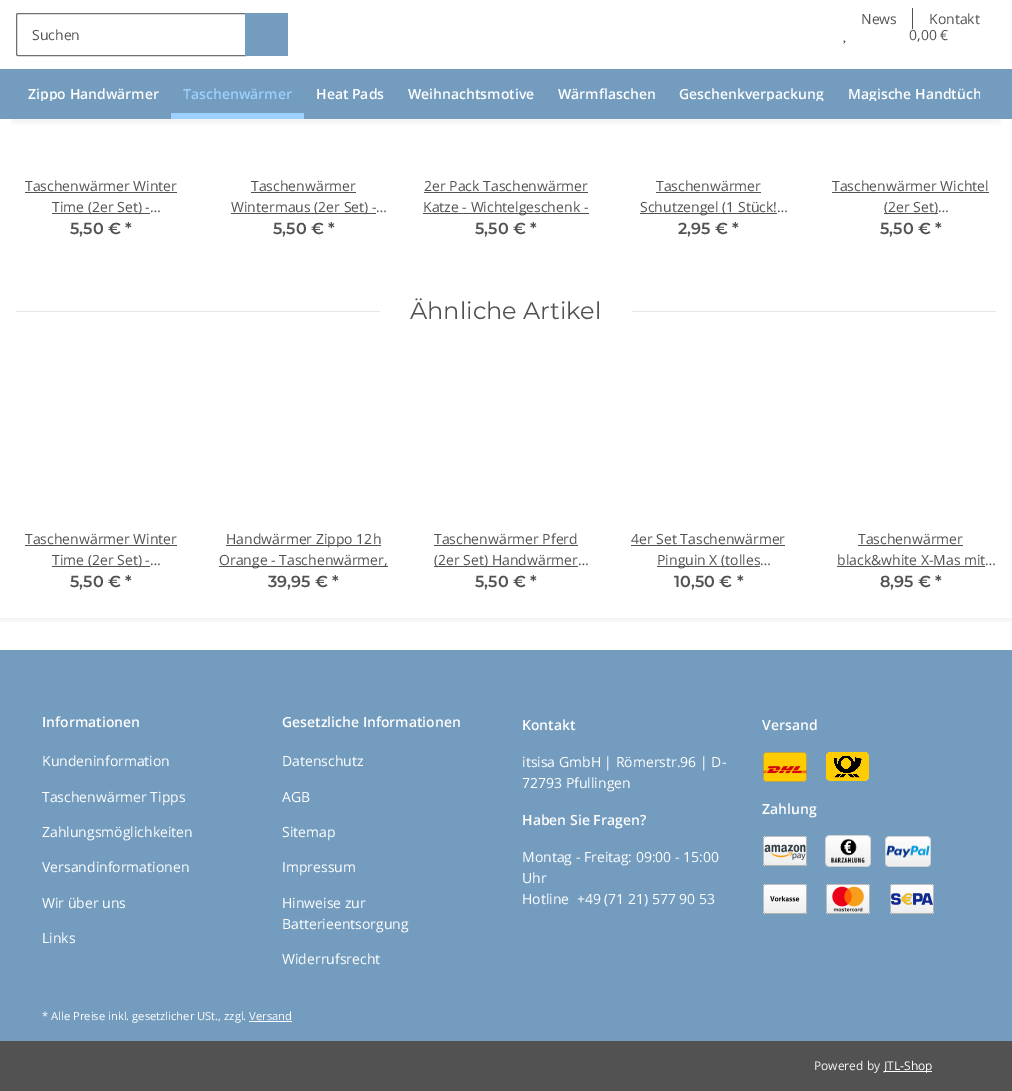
%!PS
<< /PageSize [1012 1091] /PageUsesTransparency true >> setpagedevice
/rgb { dup -16 bitshift 255 div exch dup -8 bitshift 255 and 255 div exch 255 and 255 div setrgbcolor } def
/font { [ exch dup neg 0 0 3 -1 roll 0 0 ] selectfont } def
/text { moveto show } def
/alpha { dup .setfillconstantalpha .setstrokeconstantalpha } def
/roundrect { 5 dict begin { /r /h /w /y /x } { exch def } forall
  x r add y moveto x w add y 2 copy h add r arct x w add y h add x 1 index r arct
  x y h add x y r arct x y 2 copy exch w add exch r arct closepath end } def
/shadow { 12 dict begin { /a /b /q /h /w /y /x } { exch def } forall gsave /was 0 def
  9 -2 -9 { dup b mul 4 div /e exch def 1 sub .425 mul 2.718 exch exp 1 add a .99 .min exch div /now exch def
    1 1 now sub 1 was sub div sub alpha /was now def
    w h .min e 2 mul add 0 gt { x e sub y e sub w e 2 mul add h e 2 mul add
      q e add b .6 mul add w h .min 2 div e add .min 0 .max roundrect fill } if } for grestore end } def
/picture { 5 dict begin { /h /w /y /x /name } { exch def } forall
  gsave x y translate w h scale
  w h 8 [w 0 0 h 0 0] name (r) file false 3 colorimage grestore end } def
0 .pushpdf14devicefilter
0 1091 translate 1 -1 scale
4 setmiterlimit
/s1 { /OpenSans-Regular 14 font 16#525252 rgb } def
/s2 { /OpenSans-SemiBold 14 font 16#FFFFFF rgb } def
/s3 { /OpenSans-SemiBold 14 font 16#9CD1FF rgb } def
/s4 { /Montserrat-SemiBold 16 font 16#525252 rgb } def
/s5 { /Montserrat-Regular 24 font 16#525252 rgb } def
/s6 { /OpenSans-Regular 14 font 16#FFFFFF rgb } def
/s7 { /OpenSans-Regular 11.2 font 16#FFFFFF rgb } def
/s8 { /OpenSans-Regular 12 font 16#F5F7FA rgb } def
/s9 { /OpenSans-Regular 12 font 16#FFFFFF rgb } def
16#FFFFFF rgb
0 0 1012 1091 rectfill
gsave
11 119 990 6 rectclip
16#000000 rgb
12 28 988 95 0 4.5 0.06 shadow
grestore
gsave
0 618 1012 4 rectclip
16#000000 rgb
0 -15 1012 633 0 5 0.1 shadow
grestore
s1
(News) 861 24 text
912 8 1 21 rectfill
(Kontakt) 929 24 text
16#707070 rgb
18 13.5 moveto 245.5 13.5 lineto 245.5 55.5 lineto 18 55.5 lineto 17 55.5 16.5 55 16.5 54 curveto 16.5 15 lineto 16.5 14 17 13.5 18 13.5 curveto closepath stroke
s1
(Suchen) 32 40 text
16#749CBF rgb
245 13 43 43 rectfill
(pic1.raw) 843 40 3 4 picture
s1
(0,00 €) 909 40 text
16#749CBF rgb
0 69 1012 50 rectfill
gsave
28 87 131 14 rectclip
s2
(Zippo Handwärmer) 28 99 text
grestore
s3
(Taschenwärmer) 183 99 text
171 113 133 6 rectfill
s2
(Heat Pads) 316 99 text
(Weihnachtsmotive) 408 99 text
(Wärmflaschen) 558 99 text
gsave
679 87 145 14 rectclip
(Geschenkverpackung) 679 99 text
grestore
gsave
848 87 132 14 rectclip
(Magische Handtüch) 848 99 text
grestore
s1
(Taschenwärmer Winter) 25 191 text
25 192 152 1 rectfill
52 213 98 1 rectfill
(Time \(2er Set\) -…) 52 212 text
s4
(5,50 € *) 70 234 text
s1
(Taschenwärmer) 251 191 text
251 192 105 1 rectfill
231 213 145 1 rectfill
(Wintermaus \(2er Set\) -…) 231 212 text
s4
(5,50 € *) 273 234 text
s1
(2er Pack Taschenwärmer) 424 191 text
424 192 164 1 rectfill
423 213 166 1 rectfill
(Katze - Wichtelgeschenk -) 423 212 text
s4
(5,50 € *) 475 234 text
s1
(Taschenwärmer) 656 191 text
656 192 105 1 rectfill
640 213 137 1 rectfill
(Schutzengel \(1 Stück!…) 640 212 text
s4
(2,95 € *) 678 234 text
s1
(Taschenwärmer Wichtel) 832 191 text
832 192 157 1 rectfill
884 213 54 1 rectfill
(\(2er Set\)…) 884 212 text
s4
(5,50 € *) 880 234 text
16#E6E6E6 rgb
16 311 364 1 rectfill
s5
(Ähnliche Artikel) 410 319 text
16#E6E6E6 rgb
632 311 364 1 rectfill
s1
(Taschenwärmer Winter) 25 544 text
25 545 152 1 rectfill
52 566 98 1 rectfill
(Time \(2er Set\) -…) 52 565 text
s4
(5,50 € *) 70 587 text
226 545 155 1 rectfill
s1
(Handwärmer Zippo 12h) 226 544 text
219 566 169 1 rectfill
(Orange - Taschenwärmer,) 219 565 text
s4
(39,95 € *) 268 587 text
s1
(Taschenwärmer Pferd) 434 544 text
434 545 144 1 rectfill
434 566 144 1 rectfill
(\(2er Set\) Handwärmer…) 434 565 text
s4
(5,50 € *) 475 587 text
s1
(4er Set Taschenwärmer) 631 544 text
631 545 154 1 rectfill
657 566 103 1 rectfill
(Pinguin X \(tolles…) 657 565 text
s4
(10,50 € *) 674 587 text
s1
(Taschenwärmer) 858 544 text
858 545 105 1 rectfill
(black&white X-Mas mit…) 837 565 text
837 566 148 1 rectfill
s4
(8,95 € *) 880 587 text
16#749CBF rgb
0 650 1012 391 rectfill
s2
(Informationen) 42 727 text
s6
(Kundeninformation) 42 766 text
(Taschenwärmer Tipps) 42 802 text
(Zahlungsmöglichkeiten) 42 837 text
(Versandinformationen) 42 872 text
(Wir über uns) 42 908 text
(Links) 42 943 text
s2
(Gesetzliche Informationen) 282 727 text
s6
(Datenschutz) 282 766 text
(AGB) 282 802 text
(Sitemap) 282 837 text
(Impressum) 282 872 text
(Hinweise zur) 282 908 text
(Batterieentsorgung) 282 929 text
(Widerrufsrecht) 282 964 text
s2
(Kontakt) 522 730 text
s6
(itsisa GmbH | Römerstr.96 | D-) 522 767 text
(72793 Pfullingen) 522 788 text
s2
(Haben Sie Fragen?) 522 825 text
s6
(Montag - Freitag: 09:00 - 15:00) 522 862 text
(Uhr) 522 883 text
(Hotline  +49 \(71 21\) 577 90 53) 522 904 text
s2
(Versand) 762 730 text
(pic2.raw) 763 752 44 30 picture
(pic3.raw) 826 752 43 29 picture
(Zahlung) 762 814 text
(pic4.raw) 763 836 44 30 picture
(pic5.raw) 825 835 46 32 picture
(pic6.raw) 885 836 46 31 picture
(pic7.raw) 763 884 44 30 picture
(pic8.raw) 826 884 44 30 picture
(pic9.raw) 890 884 44 30 picture
s7
(* Alle Preise inkl. gesetzlicher USt., zzgl. Versand) 42 1020 text
249 1021 43 1 rectfill
16#525252 rgb
0 1041 1012 50 rectfill
s8
(Powered by) 814 1070 text
16#FFFFFF rgb
884 1071 48 1 rectfill
(JTL-Shop) 884 1070 text
.poppdf14devicefilter showpage
